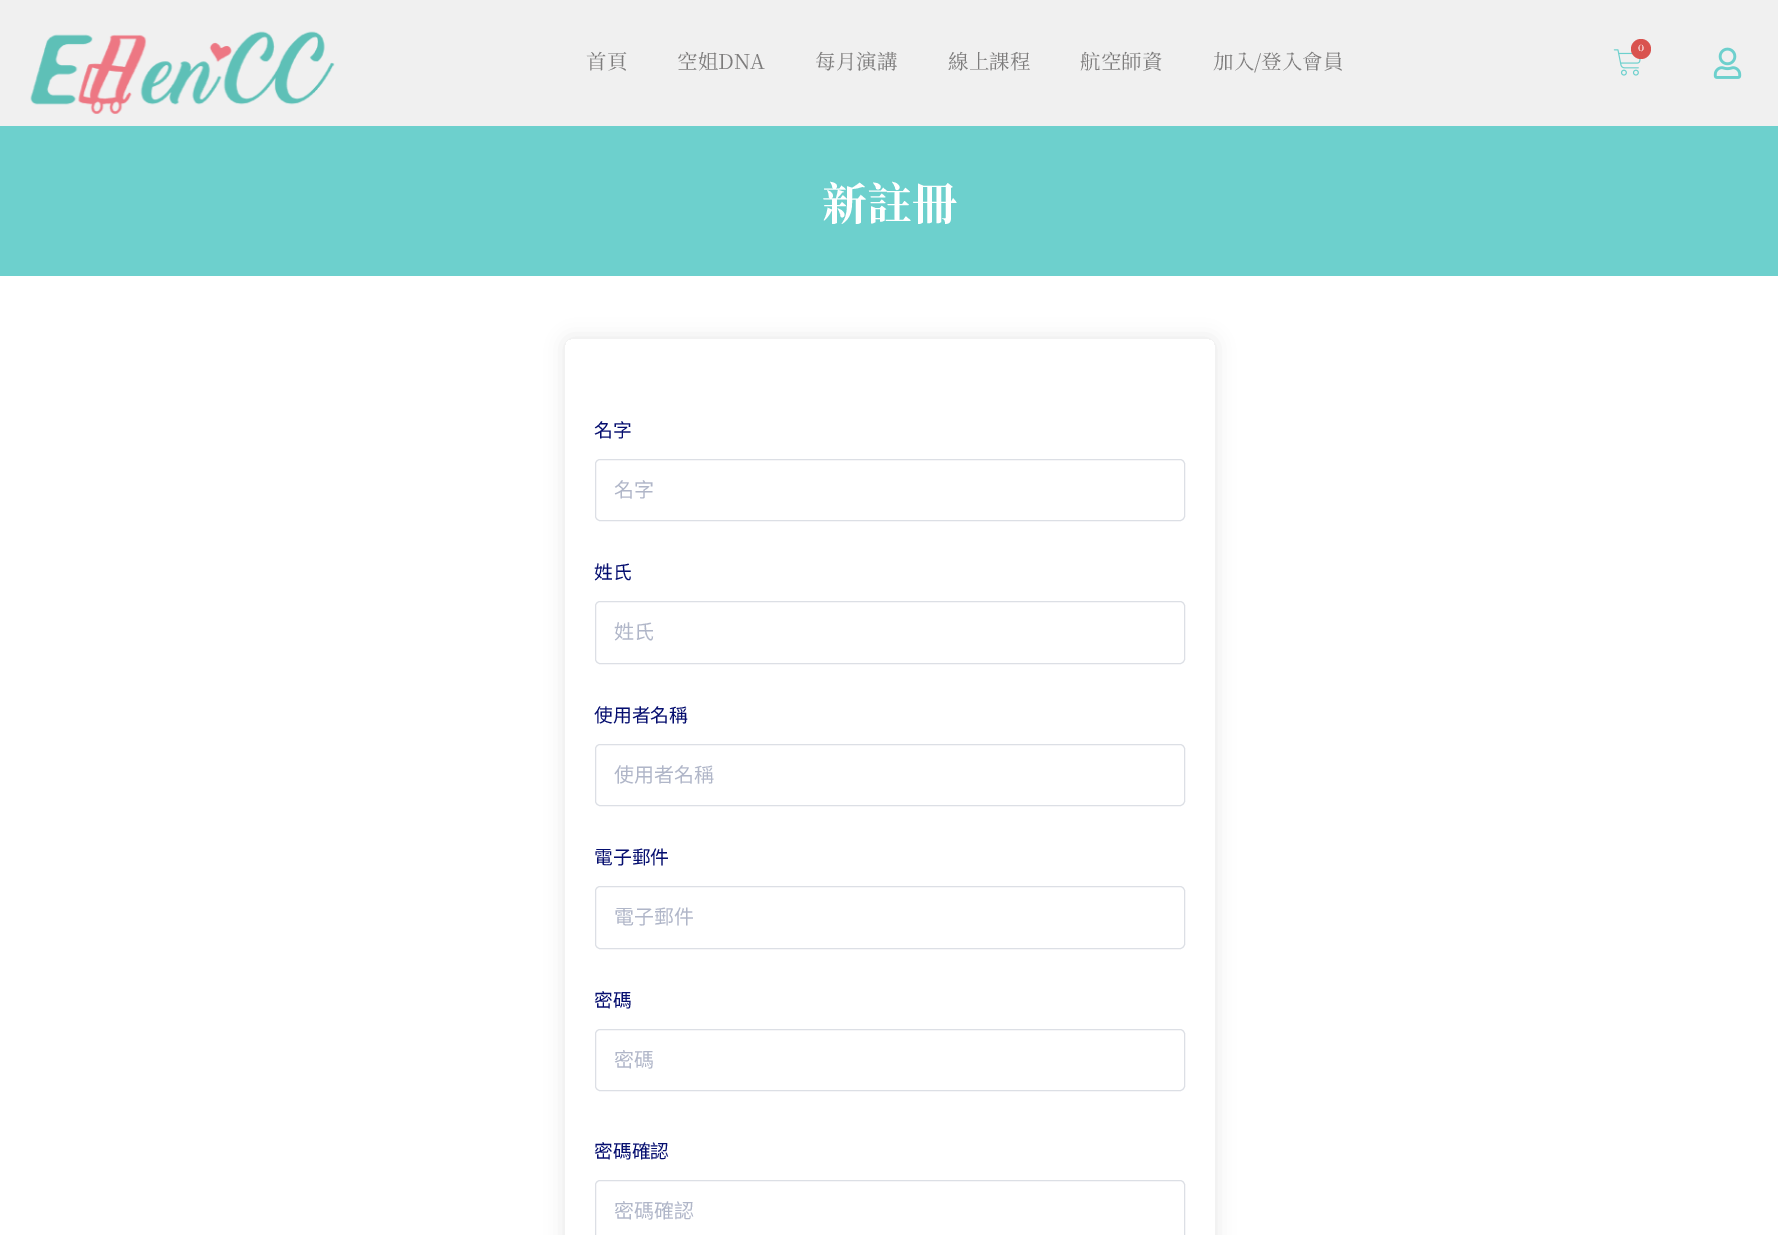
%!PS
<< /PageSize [1778 1235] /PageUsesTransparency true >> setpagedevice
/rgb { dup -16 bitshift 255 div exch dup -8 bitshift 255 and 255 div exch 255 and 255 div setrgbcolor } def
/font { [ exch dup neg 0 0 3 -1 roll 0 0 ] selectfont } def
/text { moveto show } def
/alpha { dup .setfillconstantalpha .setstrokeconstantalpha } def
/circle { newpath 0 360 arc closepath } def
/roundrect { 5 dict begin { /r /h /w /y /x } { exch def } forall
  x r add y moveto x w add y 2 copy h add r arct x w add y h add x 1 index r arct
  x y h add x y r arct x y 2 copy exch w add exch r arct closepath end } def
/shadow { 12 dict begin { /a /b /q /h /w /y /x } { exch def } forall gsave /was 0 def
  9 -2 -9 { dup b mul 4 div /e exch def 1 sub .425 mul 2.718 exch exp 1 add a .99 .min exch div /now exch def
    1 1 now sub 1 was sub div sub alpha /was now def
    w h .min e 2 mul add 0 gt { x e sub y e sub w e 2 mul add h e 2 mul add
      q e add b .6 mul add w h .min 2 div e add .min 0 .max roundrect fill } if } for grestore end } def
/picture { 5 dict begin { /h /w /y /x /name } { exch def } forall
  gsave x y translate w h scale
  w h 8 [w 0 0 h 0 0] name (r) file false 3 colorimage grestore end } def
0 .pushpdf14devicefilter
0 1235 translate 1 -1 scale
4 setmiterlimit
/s1 { /NotoSerifTC-Regular 20.5 font 16#7D7C7C rgb } def
/s2 { /AbhayaLibre-Regular 12 font 16#FFFFFF rgb } def
/s3 { /NotoSerifTC-Bold 45 font 16#FFFFFF rgb } def
/s4 { /NotoSansCJKTC-Regular 18.75 font 16#050E6F rgb } def
/s5 { /NotoSansCJKTC-Regular 20 font 16#B0B6C8 rgb } def
16#FFFFFF rgb
0 0 1778 1235 rectfill
16#F0F0F0 rgb
0 0 1778 126 rectfill
(pic1.raw) 30 31 305 83 picture
s1
(首頁) 586 69 text
(空姐DNA) 677 69 text
(每月演講) 815 69 text
(線上課程) 948 69 text
(航空師資) 1080 69 text
(加入/登入會員) 1213 69 text
(pic2.raw) 1613 49 28 27 picture
16#D9534F rgb
1641 49 10 circle fill
s2
(0) 1638 51 text
(pic3.raw) 1713 47 29 32 picture
16#6DD0CD rgb
0 126 1778 150 rectfill
s3
(新註冊) 822 220 text
gsave
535 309 moveto 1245 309 lineto 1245 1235 lineto 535 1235 lineto closepath 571 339 moveto 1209 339 lineto 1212.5 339 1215 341.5 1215 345 curveto 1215 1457 lineto 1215 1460.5 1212.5 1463 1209 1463 curveto 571 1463 lineto 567.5 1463 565 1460.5 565 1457 curveto 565 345 lineto 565 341.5 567.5 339 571 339 curveto closepath eoclip newpath
16#000000 rgb
565 339 650 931 6 9.5 0.1 shadow
grestore
s4
(名字) 594 437 text
16#DCDFE5 rgb
595.5 459.5 589 61 4.5 roundrect stroke
s5
(名字) 614 497 text
s4
(姓氏) 594 579 text
16#DCDFE5 rgb
595.5 601.5 589 62 4.5 roundrect stroke
s5
(姓氏) 614 639 text
s4
(使用者名稱) 594 722 text
16#DCDFE5 rgb
595.5 744.5 589 61 4.5 roundrect stroke
s5
(使用者名稱) 614 782 text
s4
(電子郵件) 594 864 text
16#DCDFE5 rgb
595.5 886.5 589 62 4.5 roundrect stroke
s5
(電子郵件) 614 924 text
s4
(密碼) 594 1007 text
16#DCDFE5 rgb
595.5 1029.5 589 61 4.5 roundrect stroke
s5
(密碼) 614 1067 text
s4
(密碼確認) 594 1158 text
16#DCDFE5 rgb
595.5 1180.5 589 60 4.5 roundrect stroke
s5
(密碼確認) 614 1218 text
.poppdf14devicefilter showpage
